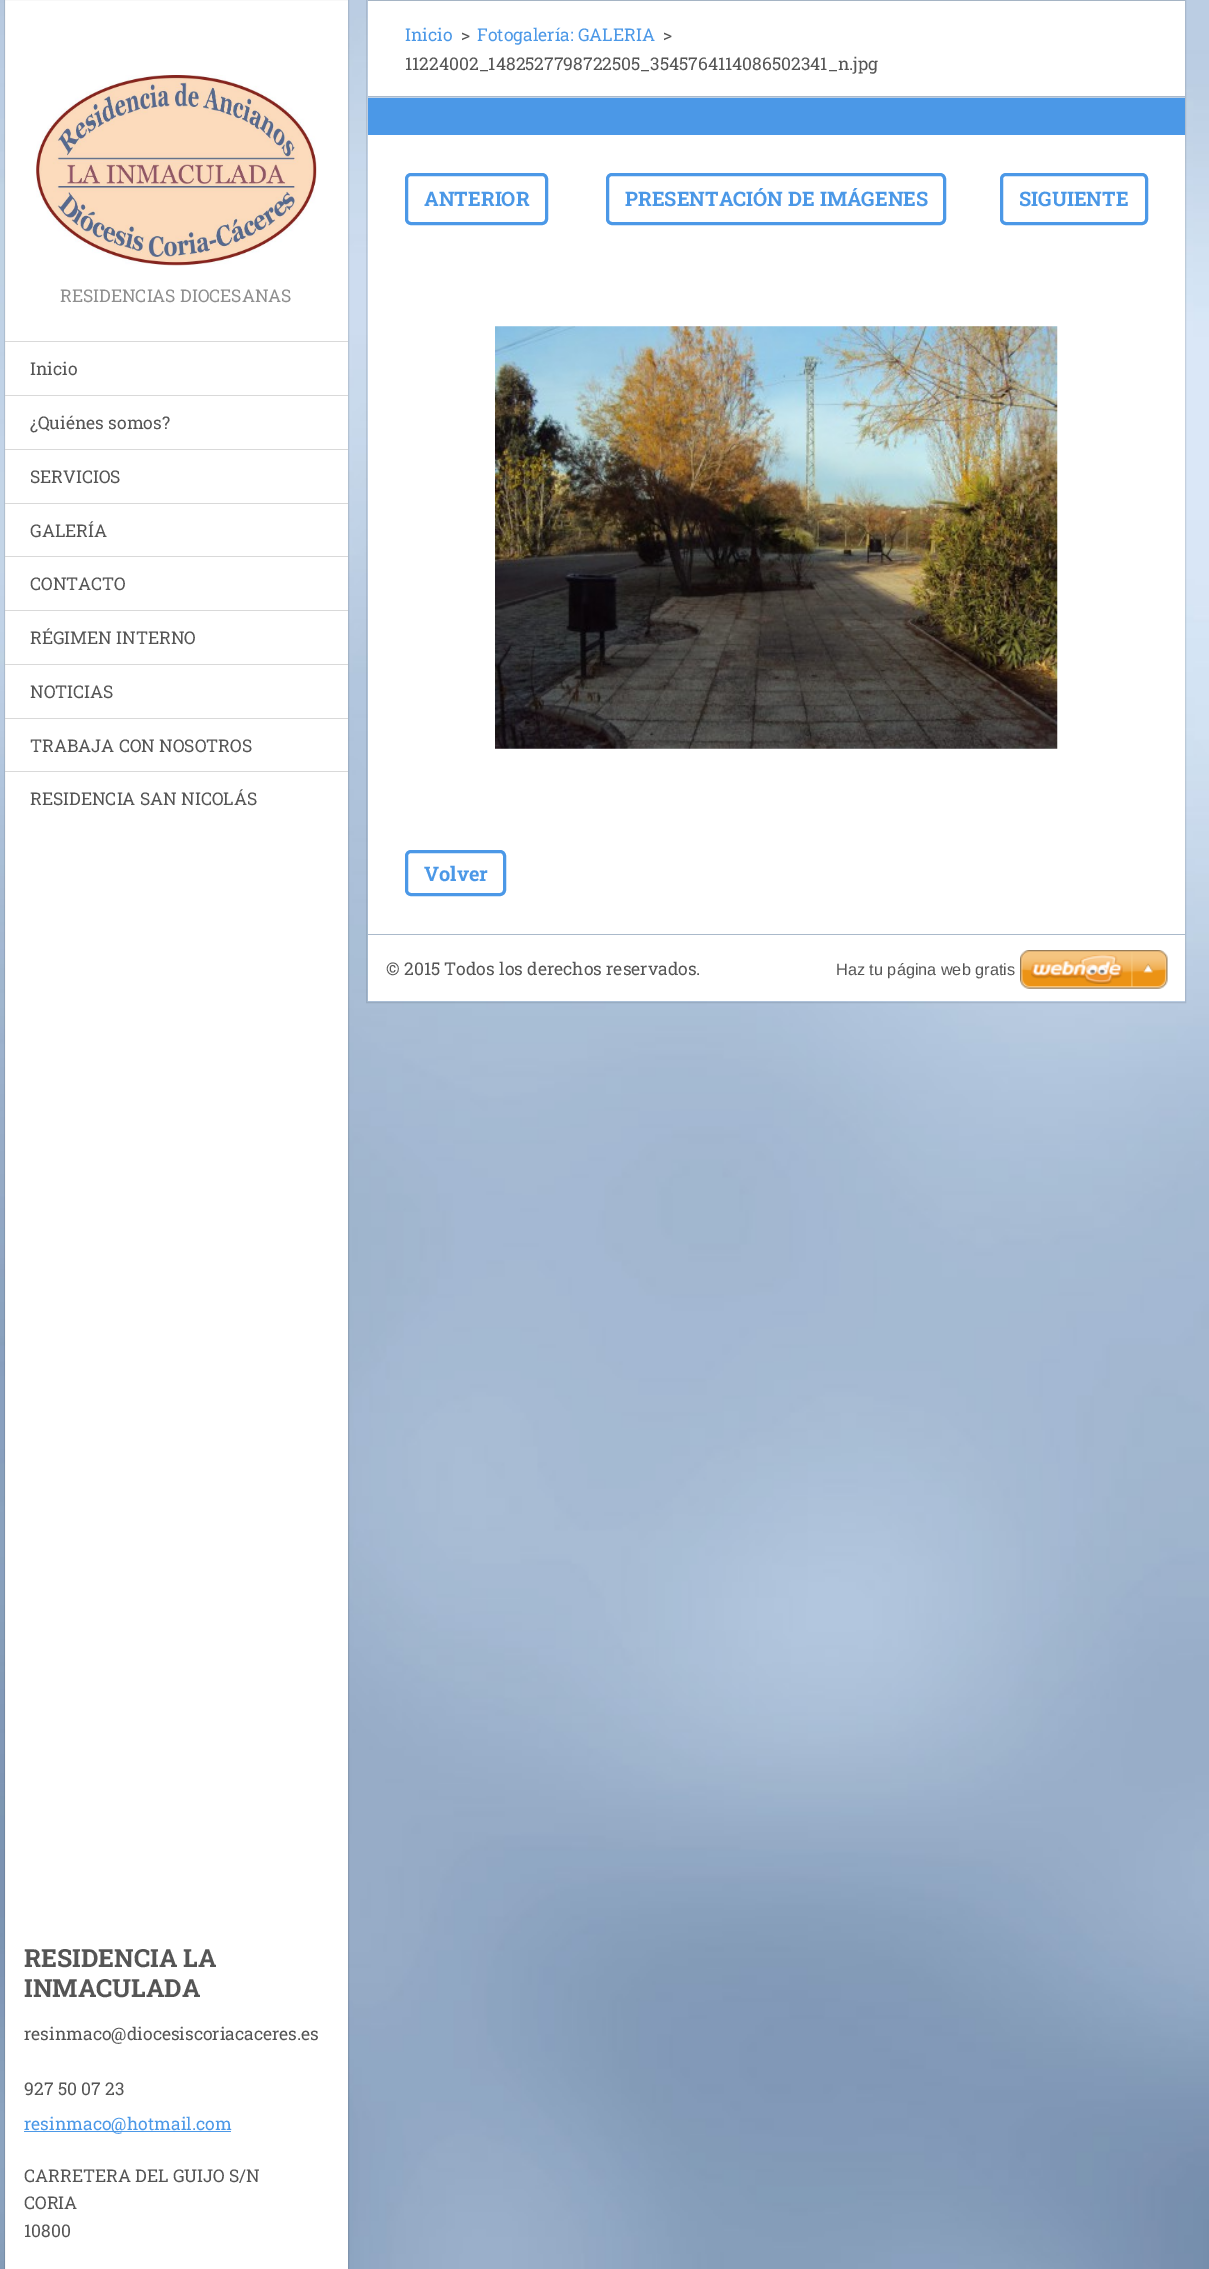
%!PS
<< /PageSize [1209 2269] /PageUsesTransparency true >> setpagedevice
/rgb { dup -16 bitshift 255 div exch dup -8 bitshift 255 and 255 div exch 255 and 255 div setrgbcolor } def
/font { [ exch dup neg 0 0 3 -1 roll 0 0 ] selectfont } def
/text { moveto show } def
/alpha { dup .setfillconstantalpha .setstrokeconstantalpha } def
/roundrect { 5 dict begin { /r /h /w /y /x } { exch def } forall
  x r add y moveto x w add y 2 copy h add r arct x w add y h add x 1 index r arct
  x y h add x y r arct x y 2 copy exch w add exch r arct closepath end } def
/picture { 5 dict begin { /h /w /y /x /name } { exch def } forall
  gsave x y translate w h scale
  w h 8 [w 0 0 h 0 0] name (r) file false 3 colorimage grestore end } def
0 .pushpdf14devicefilter
0 2269 translate 1 -1 scale
4 setmiterlimit
/s1 { /RobotoSlab-Regular 17.5 font 16#8F8F8F rgb } def
/s2 { /RobotoSlab-Regular 17.5 font 16#555555 rgb } def
/s3 { /RobotoSlab-Bold 25 font 16#555555 rgb } def
/s4 { /RobotoSlab-Regular 17.5 font 16#4B98E7 rgb } def
/s5 { /RobotoSlab-Bold 20 font 16#4B98E7 rgb } def
/s6 { /LiberationSans-Regular 16.25 font 16#555555 rgb } def
16#FFFFFF rgb
0 0 1209 2269 rectfill
(pic1.raw) 0 0 1209 2269 picture
5 0 343 2269 rectfill
0.1 alpha
16#000000 rgb
4.5 -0.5 344 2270 rectstroke
1 alpha
(pic2.raw) 36 75 281 191 picture
s1
(RESIDENCIAS DIOCESANAS) 60 302 text
16#D9D9D9 rgb
5 341 343 1 rectfill
s2
(Inicio) 30 375 text
16#D9D9D9 rgb
5 395 343 1 rectfill
s2
(¿Quiénes somos?) 30 429 text
16#D9D9D9 rgb
5 449 343 1 rectfill
s2
(SERVICIOS) 30 483 text
16#D9D9D9 rgb
5 503 343 1 rectfill
s2
(GALERÍA) 30 537 text
16#D9D9D9 rgb
5 556 343 1 rectfill
s2
(CONTACTO) 30 590 text
16#D9D9D9 rgb
5 610 343 1 rectfill
s2
(RÉGIMEN INTERNO) 30 644 text
16#D9D9D9 rgb
5 664 343 1 rectfill
s2
(NOTICIAS) 30 698 text
16#D9D9D9 rgb
5 718 343 1 rectfill
s2
(TRABAJA CON NOSOTROS) 30 752 text
16#D9D9D9 rgb
5 771 343 1 rectfill
s2
(RESIDENCIA SAN NICOLÁS) 30 805 text
s3
(RESIDENCIA LA) 24 1967 text
(INMACULADA) 24 1997 text
s2
(resinmaco@diocesiscoriacaceres.es) 24 2040 text
(927 50 07 23) 24 2095 text
16#4B98E7 rgb
24 2131 207 1 rectfill
(resinmaco@hotmail.com) 24 2130 text
s2
(CARRETERA DEL GUIJO S/N) 24 2182 text
(CORIA) 24 2209 text
(10800) 24 2237 text
16#FFFFFF rgb
368 1 817 95 rectfill
16#AAB9CA rgb
368 0 817 1 rectfill
0.1 alpha
16#000000 rgb
366.5 -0.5 819 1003 rectstroke
1 alpha
s4
(Inicio) 405 41 text
s2
(>) 461 41 text
s4
(Fotogalería: GALERIA) 477 41 text
s2
(>) 663 41 text
(11224002_1482527798722505_3545764114086502341_n.jpg) 405 70 text
16#AAB9CA rgb
368 96 817 1 rectfill
16#4B98E7 rgb
368 98 817 37 rectfill
16#FFFFFF rgb
368 135 817 799 rectfill
16#4B98E7 rgb
3 setlinewidth
406.5 174.5 140 49 4.5 roundrect stroke
s5
(ANTERIOR) 424 206 text
607.5 174.5 337 49 4.5 roundrect stroke
(PRESENTACIÓN DE IMÁGENES) 625 206 text
1001.5 174.5 145 49 4.5 roundrect stroke
(SIGUIENTE) 1019 206 text
(pic3.raw) 495 326 563 423 picture
406.5 851.5 98 43 4.5 roundrect stroke
(Volver) 424 881 text
16#FFFFFF rgb
368 935 817 66 rectfill
16#AAB9CA rgb
368 934 817 1 rectfill
s2
(© 2015 Todos los derechos reservados.) 386 975 text
s6
(Haz tu página web gratis) 836 975 text
(pic4.raw) 1020 950 148 39 picture
.poppdf14devicefilter showpage
